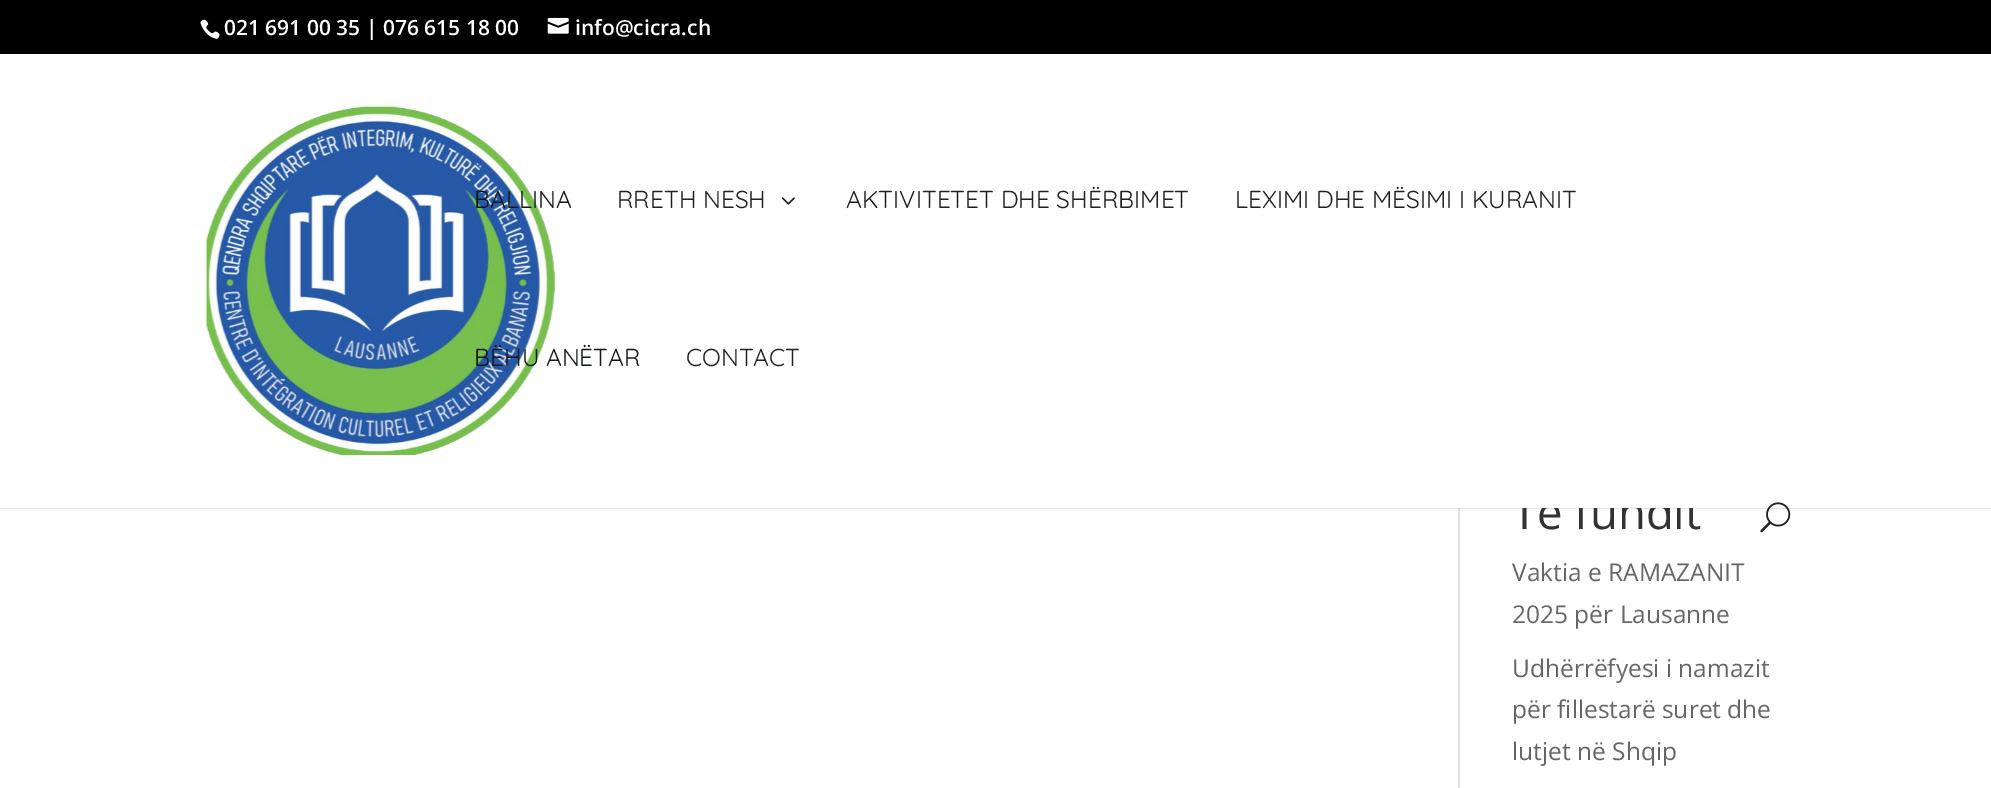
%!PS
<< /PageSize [1991 788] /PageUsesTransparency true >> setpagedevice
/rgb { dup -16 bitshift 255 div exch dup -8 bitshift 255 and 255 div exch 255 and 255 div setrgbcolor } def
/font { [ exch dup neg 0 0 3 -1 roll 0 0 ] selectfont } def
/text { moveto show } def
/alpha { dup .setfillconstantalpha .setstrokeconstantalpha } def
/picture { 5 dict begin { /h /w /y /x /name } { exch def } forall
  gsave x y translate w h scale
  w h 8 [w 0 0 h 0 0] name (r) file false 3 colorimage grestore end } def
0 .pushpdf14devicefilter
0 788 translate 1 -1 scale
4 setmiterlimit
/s1 { /OpenSans-SemiBold 21 font 16#FFFFFF rgb } def
/s2 { /OpenSans-Regular 45.5 font 16#333333 rgb } def
/s3 { /Quicksand-Regular 24.5 font 16#15181B rgb } def
/s4 { /Quicksand-Regular 24.5 font 16#212121 rgb } def
/s5 { /OpenSans-Regular 24.5 font 16#666666 rgb } def
16#FFFFFF rgb
0 0 1991 788 rectfill
16#000000 rgb
0 0 1991 54 rectfill
(pic1.raw) 200 19 20 20 picture
s1
(021 691 00 35 | 076 615 18 00) 224 35 text
(pic2.raw) 547 17 22 17 picture
(info@cicra.ch) 575 35 text
16#E2E2E2 rgb
1458 508 2 280 rectfill
0.1 alpha
16#000000 rgb
0 508 moveto 0 509 lineto 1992 509 lineto 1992 56 lineto 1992 508 lineto closepath fill
1 alpha
s2
(Të fundit) 1512 529 text
16#FFFFFF rgb
1512 494 189 14 rectfill
(pic3.raw) 205 106 350 349 picture
s3
(BALLINA) 474 208 text
s4
(RRETH NESH) 617 208 text
(pic4.raw) 781 197 14 8 picture
(AKTIVITETET DHE SHËRBIMET) 846 208 text
(LEXIMI DHE MËSIMI I KURANIT) 1235 208 text
s3
(BËHU ANËTAR) 474 366 text
s4
(CONTACT) 686 366 text
(pic5.raw) 1760 502 31 31 picture
s5
(Vaktia e RAMAZANIT) 1512 581 text
(2025 për Lausanne) 1512 623 text
(Udhërrëfyesi i namazit) 1512 677 text
(për fillestarë suret dhe) 1512 718 text
(lutjet në Shqip) 1512 760 text
.poppdf14devicefilter showpage
